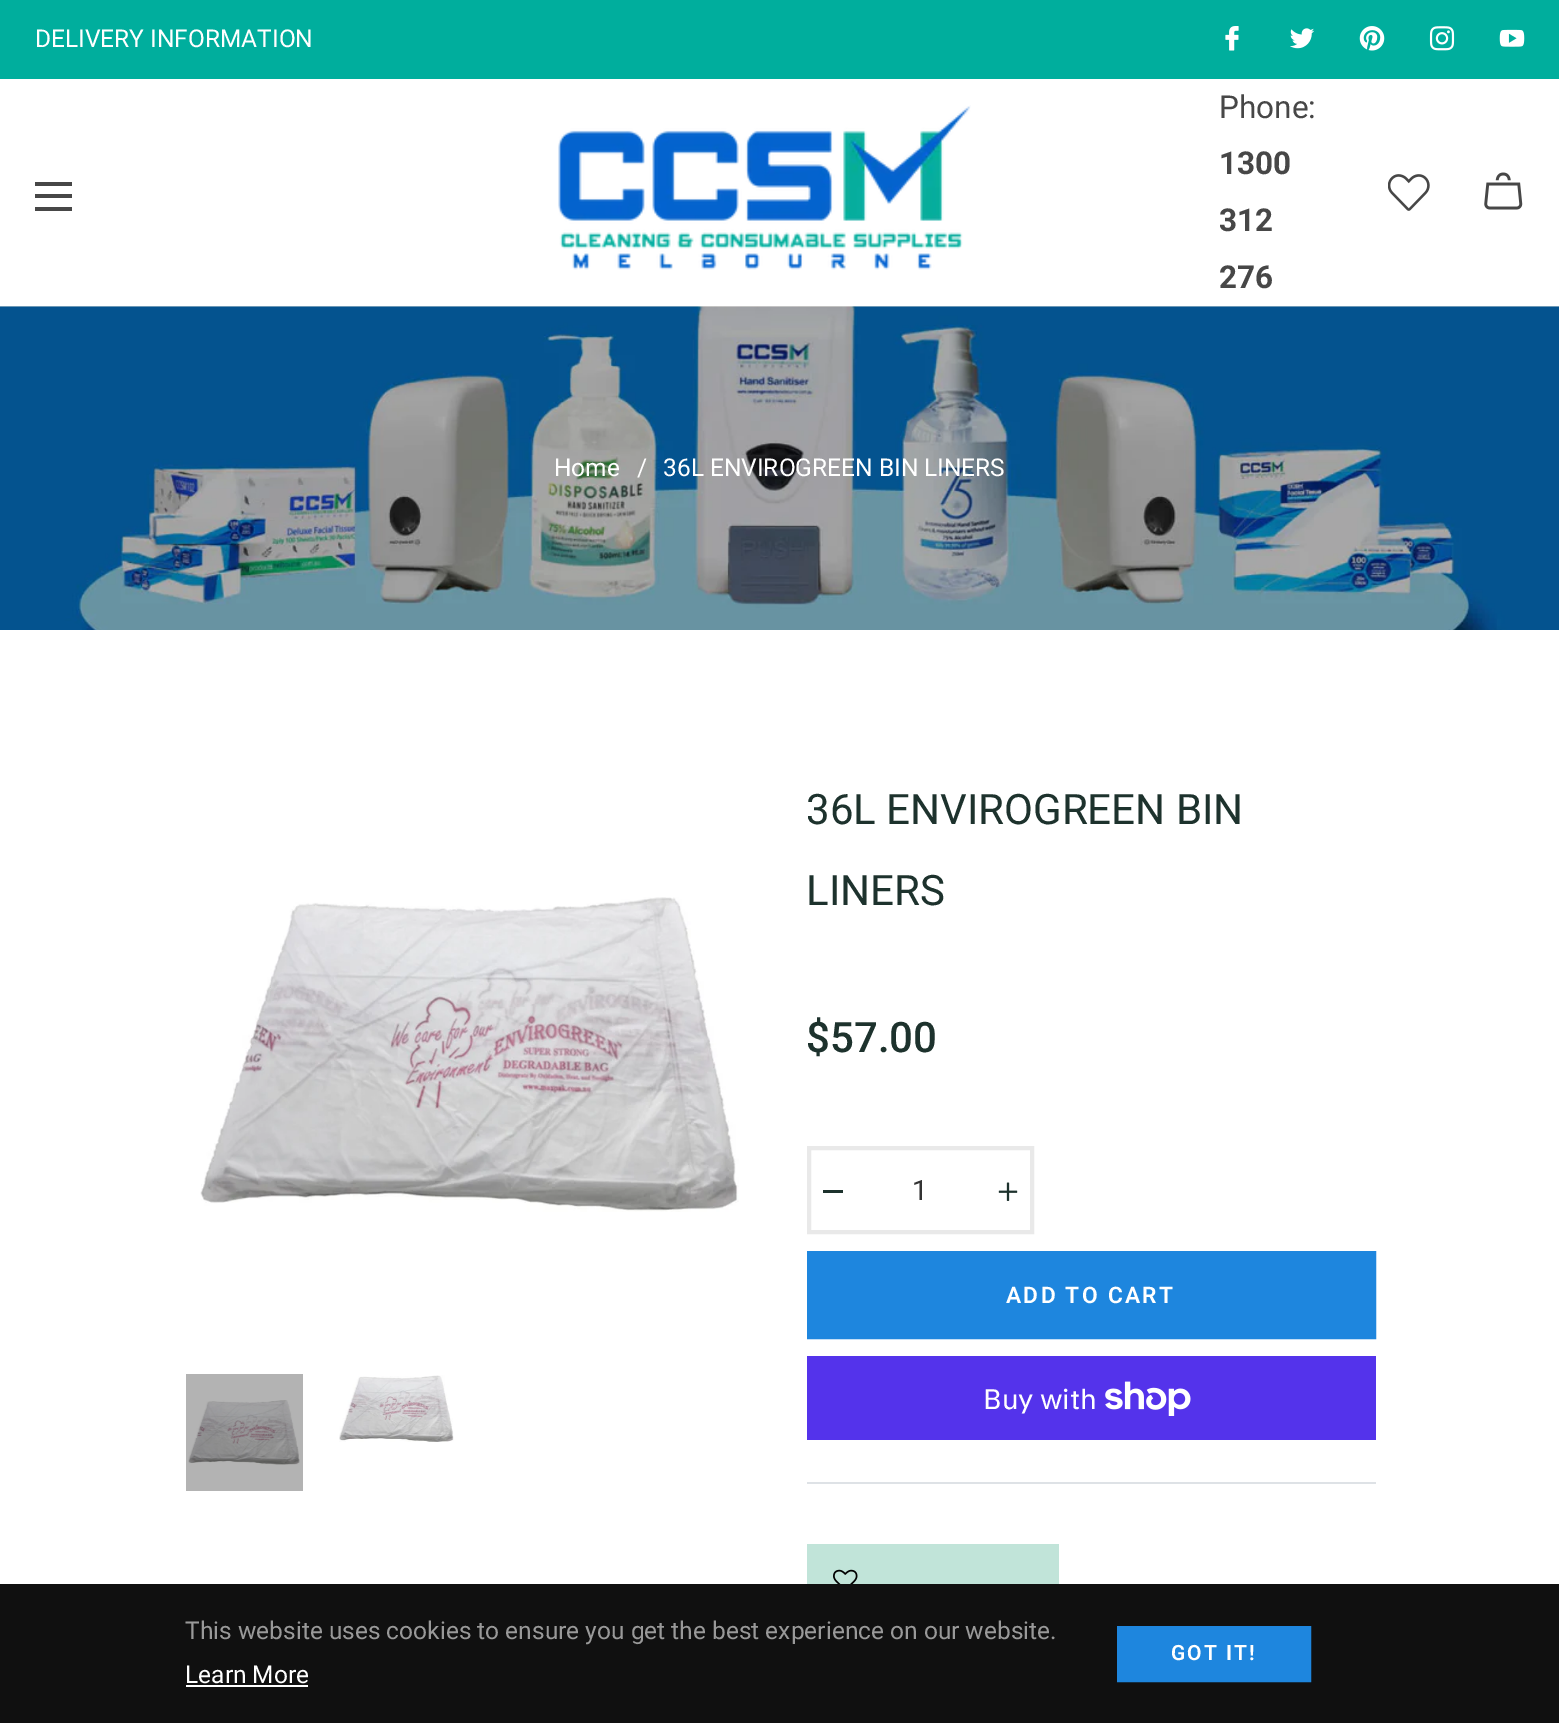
%!PS
<< /PageSize [1559 1723] >> setpagedevice
/rgb { dup -16 bitshift 255 div exch dup -8 bitshift 255 and 255 div exch 255 and 255 div setrgbcolor } def
/font { [ exch dup neg 0 0 3 -1 roll 0 0 ] selectfont } def
/text { moveto show } def
/picture { 5 dict begin { /h /w /y /x /name } { exch def } forall
  gsave x y translate w h scale
  w h 8 [w 0 0 h 0 0] name (r) file false 3 colorimage grestore end } def
0 1723 translate 1 -1 scale
4 setmiterlimit
/s1 { /Roboto-Regular 24.5 font 16#FFFFFF rgb } def
/s2 { /Roboto-Regular 31.5 font 16#474747 rgb } def
/s3 { /Roboto-Bold 31.5 font 16#474747 rgb } def
/s4 { /Roboto-Regular 42 font 16#1D322D rgb } def
/s5 { /Roboto-Medium 42 font 16#1D322D rgb } def
/s6 { /Roboto-Regular 28 font 16#333333 rgb } def
/s7 { /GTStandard-Regular 28 font 16#FFFFFF rgb } def
/s8 { /Roboto-Regular 24.5 font 16#999999 rgb } def
16#FFFFFF rgb
0 0 1559 1723 rectfill
16#B3B3B3 rgb
186 1374 117 117 rectfill
16#00AE9D rgb
0 0 1559 79 rectfill
s1
(DELIVERY INFORMATION) 35 47 text
(pic1.raw) 1225 26 14 25 picture
(pic2.raw) 1290 28 25 21 picture
(pic3.raw) 1359 26 26 25 picture
(pic4.raw) 1429 26 26 25 picture
(pic5.raw) 1499 29 26 18 picture
16#474747 rgb
35 182 37 4 rectfill
35 194 37 4 rectfill
35 207 37 4 rectfill
(pic6.raw) 558 105 413 165 picture
s2
(Phone:) 1219 118 text
s3
(1300) 1219 174 text
(312) 1219 231 text
(276) 1219 288 text
(pic7.raw) 1388 174 42 37 picture
(pic8.raw) 1484 172 39 38 picture
16#F4F1EB rgb
0 306 1559 1 rectfill
(pic9.raw) 0 306 1559 324 picture
s1
(Home) 554 476 text
(/) 637 476 text
(36L ENVIROGREEN BIN LINERS) 663 476 text
(pic10.raw) 200 897 539 315 picture
(pic11.raw) 188 1400 112 65 picture
(pic12.raw) 339 1375 115 67 picture
s4
(36L ENVIROGREEN BIN) 806 824 text
(LINERS) 806 905 text
s5
($57.00) 806 1052 text
16#E9E9E9 rgb
4 setlinewidth
809 1148 223 84 rectstroke
16#1D322D rgb
823 1190 20 3 rectfill
s6
(1) 912 1200 text
(pic13.raw) 998 1182 20 19 picture
16#1E86DE rgb
2 setlinewidth
808 1252 567 86 rectstroke
809 1253 565 84 rectfill
/Roboto-SemiBold 22.75 font
16#FFFFFF rgb
1006 1303 moveto 2.25 0 (ADD TO CART) ashow
16#5433EB rgb
807 1356 569 84 rectfill
s7
(Buy with) 983 1409 text
(pic14.raw) 1105 1381 86 35 picture
16#DEE2E6 rgb
807 1482 569 2 rectfill
16#C1E4D9 rgb
807 1544 252 40 rectfill
(pic15.raw) 833 1569 25 15 picture
16#101010 rgb
0 1584 1559 139 rectfill
s8
(This website uses cookies to ensure you get the best experience on our website.) 185 1639 text
s1
(Learn More) 185 1683 text
186 1685 122 2 rectfill
16#1E86DE rgb
1118 1627 192 54 rectstroke
1119 1628 190 52 rectfill
/Roboto-SemiBold 21 font
16#FFFFFF rgb
1171 1660 moveto 2 0 (GOT IT!) ashow
showpage
